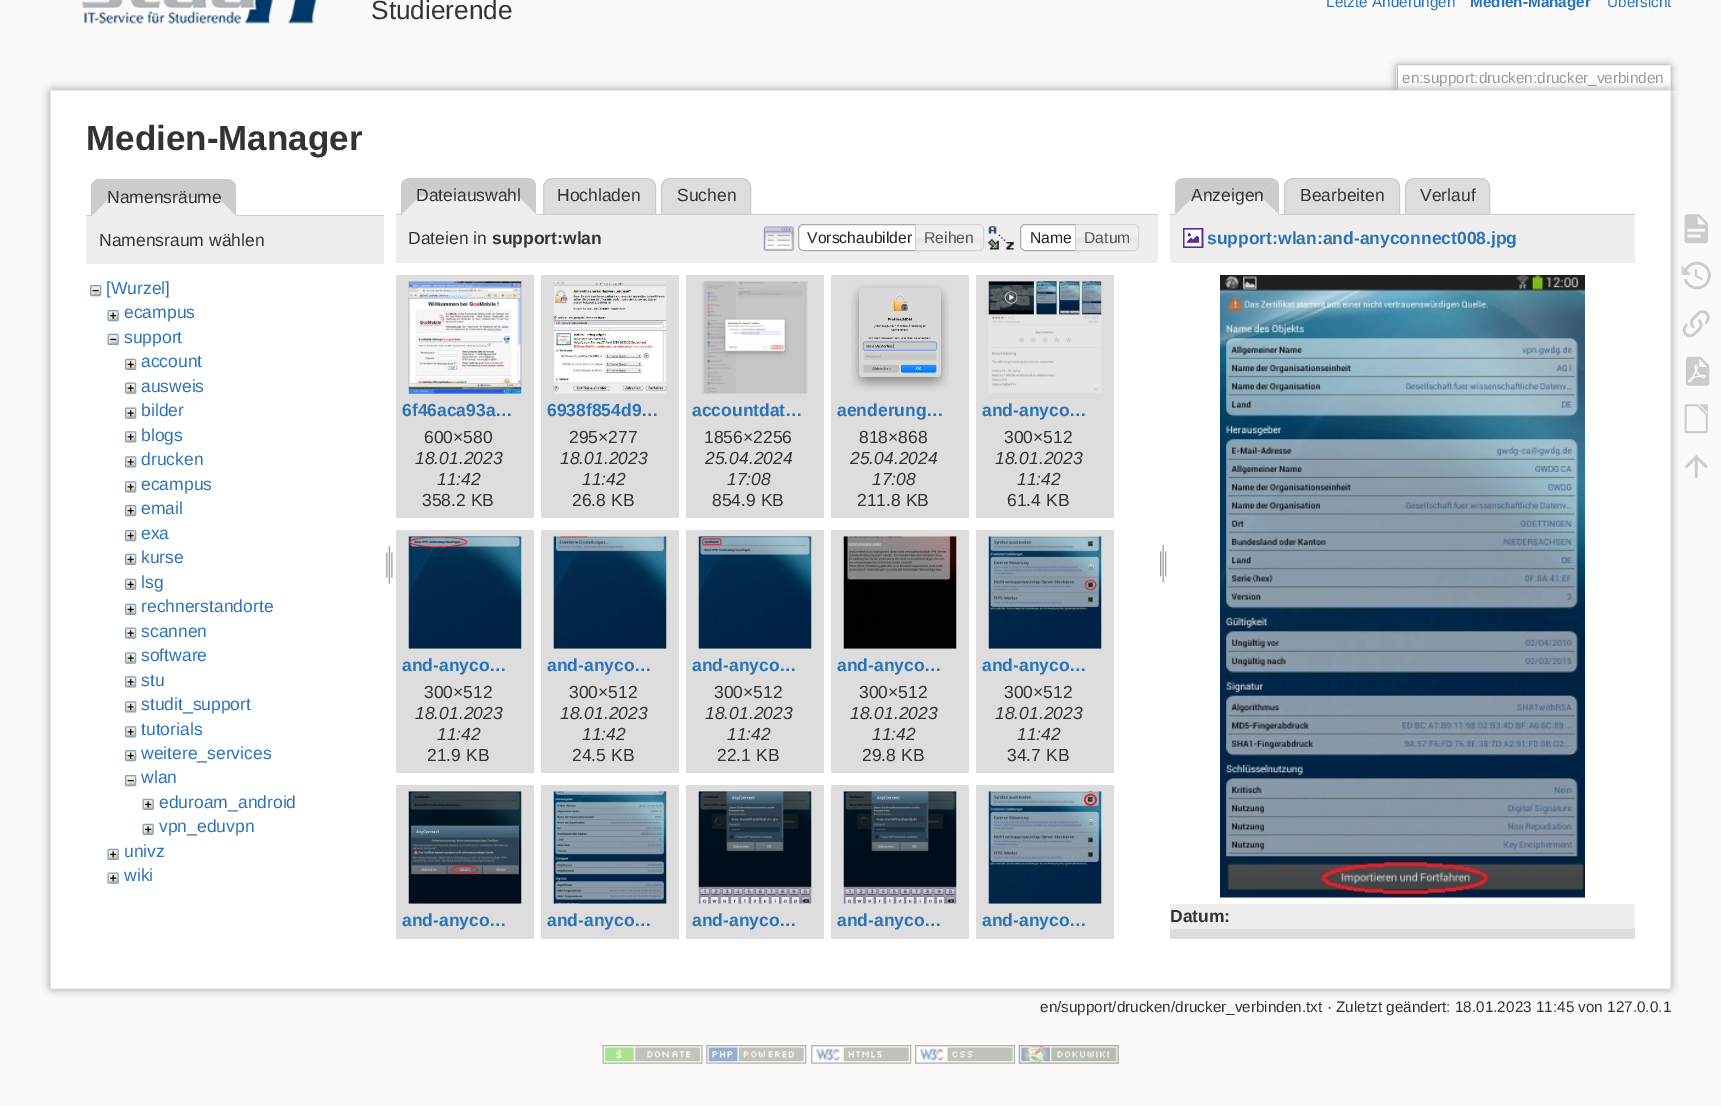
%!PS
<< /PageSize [1721 1106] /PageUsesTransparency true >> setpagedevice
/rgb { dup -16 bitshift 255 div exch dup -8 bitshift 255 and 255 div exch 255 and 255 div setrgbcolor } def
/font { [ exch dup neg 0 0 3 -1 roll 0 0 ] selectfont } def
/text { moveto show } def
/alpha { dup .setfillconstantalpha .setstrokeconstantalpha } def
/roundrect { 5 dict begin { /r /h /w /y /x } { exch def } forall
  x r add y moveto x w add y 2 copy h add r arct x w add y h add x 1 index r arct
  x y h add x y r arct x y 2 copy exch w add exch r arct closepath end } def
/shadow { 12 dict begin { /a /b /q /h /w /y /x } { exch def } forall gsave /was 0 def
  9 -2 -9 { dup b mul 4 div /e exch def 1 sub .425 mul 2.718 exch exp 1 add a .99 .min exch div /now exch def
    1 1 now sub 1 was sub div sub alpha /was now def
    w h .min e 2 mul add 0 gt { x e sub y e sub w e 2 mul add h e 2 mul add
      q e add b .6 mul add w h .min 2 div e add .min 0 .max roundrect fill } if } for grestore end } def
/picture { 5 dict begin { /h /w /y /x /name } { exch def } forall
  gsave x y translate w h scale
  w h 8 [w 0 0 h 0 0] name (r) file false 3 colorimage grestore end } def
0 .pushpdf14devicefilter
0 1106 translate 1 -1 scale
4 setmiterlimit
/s1 { /LiberationSans-Regular 26.25 font 16#333333 rgb } def
/s2 { /LiberationSans-Regular 15.3 font 16#2B73B7 rgb } def
/s3 { /LiberationSans-Bold 15.3 font 16#2B73B7 rgb } def
/s4 { /LiberationSans-Regular 15.3 font 16#999999 rgb } def
/s5 { /LiberationSans-Bold 35 font 16#333333 rgb } def
/s6 { /LiberationSans-Regular 17.5 font 16#333333 rgb } def
/s7 { /LiberationSans-Regular 17.5 font 16#2B73B7 rgb } def
/s8 { /LiberationSans-Bold 17.5 font 16#333333 rgb } def
/s9 { /LiberationSans-Regular 15.75 font 16#212121 rgb } def
/s10 { /LiberationSans-Regular 15.75 font 16#555555 rgb } def
/s11 { /LiberationSans-Bold 17.5 font 16#2B73B7 rgb } def
/s12 { /LiberationSans-Italic 17.5 font 16#333333 rgb } def
/s13 { /LiberationSans-Regular 15.3 font 16#333333 rgb } def
16#FBFAF9 rgb
0 0 1721 1106 rectfill
(pic1.raw) 81 0 236 24 picture
s1
(Studierende) 371 19 text
s2
(Letzte Änderungen) 1326 7 text
s3
(Medien-Manager) 1470 7 text
s2
(Übersicht) 1607 7 text
gsave
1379 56 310 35 rectclip
16#999999 rgb
1396 65 275 26 2.5 4 1 shadow
grestore
16#FFFFFF rgb
1399 66 moveto 1669 66 lineto 1669.5 66 1670 66.5 1670 67 curveto 1670 91 lineto 1398 91 lineto 1398 67 lineto 1398 66.5 1398.5 66 1399 66 curveto closepath fill
16#EEEEEE rgb
1398 65 272 1 rectfill
1670 66 1 25 rectfill
1396 66 1 25 rectfill
s4
(en:support:drucken:drucker_verbinden) 1402 83 text
50 90 1621 899 2.5 4.5 1 shadow
16#FFFFFF rgb
50.5 90.5 1620 898 2 roundrect gsave fill grestore
16#EEEEEE rgb
stroke
s5
(Medien-Manager) 86 150 text
16#CCCCCC rgb
86 215 298 1 rectfill
16#EEEEEE rgb
100 179 moveto 227 179 lineto 232 179 236 183 236 188 curveto 236 216 lineto 91 216 lineto 91 188 lineto 91 183 95 179 100 179 curveto closepath fill
16#CCCCCC rgb
100 179 moveto 98 179 95 180 94 181 curveto 110 198 lineto 218 198 lineto 233 182 lineto 232 180 230 179 228 179 curveto closepath fill
236 216 moveto 236 188 lineto 236 185.5 235 183 233.5 181.5 curveto 217.5 197.5 lineto closepath fill
16#EEEEEE rgb
236 216 moveto 218 198 lineto 110 198 lineto 92 216 lineto closepath fill
16#CCCCCC rgb
91 186 moveto 91.5 184 92.5 182.5 94 181.5 curveto 110 197.5 lineto 91.5 216 lineto 91 216 lineto closepath fill
s6
(Namensräume) 107 203 text
16#EEEEEE rgb
86 216 298 48 rectfill
s6
(Namensraum wählen) 99 246 text
(pic2.raw) 90 285 12 12 picture
s7
([Wurzel]) 106 294 text
(pic3.raw) 107 310 12 12 picture
(ecampus) 124 318 text
(pic4.raw) 107 333 12 12 picture
(support) 124 343 text
(pic5.raw) 125 358 12 12 picture
(account) 141 367 text
(pic6.raw) 125 382 12 12 picture
(ausweis) 141 392 text
(pic6.raw) 125 407 12 12 picture
(bilder) 141 416 text
(pic7.raw) 125 431 12 12 picture
(blogs) 141 441 text
(pic7.raw) 125 456 12 12 picture
(drucken) 141 465 text
(pic7.raw) 125 481 12 12 picture
(ecampus) 141 490 text
(pic8.raw) 125 505 12 12 picture
(email) 141 514 text
(pic8.raw) 125 530 12 12 picture
(exa) 141 539 text
(pic5.raw) 125 553 12 12 picture
(kurse) 141 563 text
(pic5.raw) 125 578 12 12 picture
(lsg) 141 588 text
(pic5.raw) 125 603 12 12 picture
(rechnerstandorte) 141 612 text
(pic6.raw) 125 627 12 12 picture
(scannen) 141 637 text
(pic6.raw) 125 652 12 12 picture
(software) 141 661 text
(pic7.raw) 125 676 12 12 picture
(stu) 141 686 text
(pic7.raw) 125 701 12 12 picture
(studit_support) 141 710 text
(pic7.raw) 125 726 12 12 picture
(tutorials) 141 735 text
(pic8.raw) 125 750 12 12 picture
(weitere_services) 141 759 text
(pic2.raw) 125 775 12 12 picture
(wlan) 141 783 text
(pic9.raw) 142 798 12 12 picture
(eduroam_android) 159 808 text
(pic9.raw) 142 823 12 12 picture
(vpn_eduvpn) 159 832 text
(pic9.raw) 107 848 12 12 picture
(univz) 124 857 text
(pic10.raw) 107 872 12 12 picture
(wiki) 124 881 text
(pic11.raw) 386 545 7 39 picture
16#CCCCCC rgb
410 178 moveto 408 178 405 179 404 180 curveto 420 196 lineto 518 196 lineto 534 180 lineto 532 179 530 178 528 178 curveto closepath fill
16#DDDDDD rgb
552 178.5 moveto 647 178.5 lineto 651.5 178.5 655.5 182.5 655.5 187 curveto 655.5 214.5 lineto 543.5 214.5 lineto 543.5 187 lineto 543.5 182.5 547.5 178.5 552 178.5 curveto closepath gsave fill grestore
16#CCCCCC rgb
stroke
16#DDDDDD rgb
670 178.5 moveto 742 178.5 lineto 746.5 178.5 750.5 182.5 750.5 187 curveto 750.5 214.5 lineto 661.5 214.5 lineto 661.5 187 lineto 661.5 182.5 665.5 178.5 670 178.5 curveto closepath gsave fill grestore
16#CCCCCC rgb
stroke
396 214 762 1 rectfill
536 215 moveto 536 186 lineto 536 183.5 535 181.5 533.5 180 curveto 517.5 196 lineto closepath fill
16#EEEEEE rgb
536 215 moveto 518 196 lineto 420 196 lineto 401 215 lineto closepath fill
16#CCCCCC rgb
401 215 moveto 420 196 lineto 404 180 lineto 402.5 181 401.5 182.5 401 184 curveto closepath fill
s6
(Dateiauswahl) 416 201 text
(Hochladen) 557 201 text
(Suchen) 677 201 text
16#EEEEEE rgb
396 215 762 48 rectfill
s6
(Dateien in) 408 244 text
s8
(support:wlan) 492 244 text
(pic12.raw) 763 226 31 25 picture
16#FFFFFF rgb
803 224 moveto 921 224 lineto 921 251 lineto 803 251 lineto 800 251 798 249 798 246 curveto 798 229 lineto 798 226 800 224 803 224 curveto closepath fill
(pic13.raw) 797 224 5 27 picture
16#AAAAAA rgb
803 224.5 moveto 920.5 224.5 lineto 920.5 250.5 lineto 803 250.5 lineto 800.5 250.5 798.5 248.5 798.5 246 curveto 798.5 229 lineto 798.5 226.5 800.5 224.5 803 224.5 curveto closepath stroke
s9
(Vorschaubilder) 807 243 text
(pic14.raw) 916 224 68 27 picture
16#D3D3D3 rgb
915.5 224.5 moveto 979 224.5 lineto 981.5 224.5 983.5 226.5 983.5 229 curveto 983.5 246 lineto 983.5 248.5 981.5 250.5 979 250.5 curveto 915.5 250.5 lineto closepath stroke
s10
(Reihen) 924 243 text
(pic15.raw) 987 226 27 24 picture
16#FFFFFF rgb
1025 224 moveto 1081 224 lineto 1081 251 lineto 1025 251 lineto 1022 251 1020 249 1020 246 curveto 1020 229 lineto 1020 226 1022 224 1025 224 curveto closepath fill
(pic16.raw) 1020 224 4 27 picture
16#AAAAAA rgb
1025 224.5 moveto 1080.5 224.5 lineto 1080.5 250.5 lineto 1025 250.5 lineto 1022.5 250.5 1020.5 248.5 1020.5 246 curveto 1020.5 229 lineto 1020.5 226.5 1022.5 224.5 1025 224.5 curveto closepath stroke
s9
(Name) 1030 243 text
(pic17.raw) 1076 224 63 27 picture
16#D3D3D3 rgb
1075.5 224.5 moveto 1134 224.5 lineto 1136.5 224.5 1138.5 226.5 1138.5 229 curveto 1138.5 246 lineto 1138.5 248.5 1136.5 250.5 1134 250.5 curveto 1075.5 250.5 lineto closepath stroke
s10
(Datum) 1084 243 text
16#DDDDDD rgb
396 275 138 243 rectfill
(pic18.raw) 408 281 114 113 picture
s11
(6f46aca93a…) 402 416 text
s6
(600×580) 424 443 text
s12
(18.01.2023) 415 464 text
(11:42) 437 485 text
s6
(358.2 KB) 422 506 text
16#DDDDDD rgb
541 275 138 243 rectfill
(pic19.raw) 553 281 114 113 picture
s11
(6938f854d9…) 547 416 text
s6
(295×277) 569 443 text
s12
(18.01.2023) 560 464 text
(11:42) 582 485 text
s6
(26.8 KB) 572 506 text
16#DDDDDD rgb
686 275 138 243 rectfill
(pic20.raw) 702 281 106 113 picture
s11
(accountdat…) 692 416 text
s6
(1856×2256) 704 443 text
s12
(25.04.2024) 705 464 text
(17:08) 727 485 text
s6
(854.9 KB) 712 506 text
16#DDDDDD rgb
831 275 138 243 rectfill
(pic21.raw) 851 284 98 107 picture
s11
(aenderung…) 837 416 text
s6
(818×868) 859 443 text
s12
(25.04.2024) 850 464 text
(17:08) 872 485 text
s6
(211.8 KB) 857 506 text
16#DDDDDD rgb
976 275 138 243 rectfill
(pic22.raw) 988 281 114 112 picture
s11
(and-anyco…) 982 416 text
s6
(300×512) 1004 443 text
s12
(18.01.2023) 995 464 text
(11:42) 1017 485 text
s6
(61.4 KB) 1007 506 text
16#DDDDDD rgb
396 530 138 243 rectfill
(pic23.raw) 408 536 114 113 picture
s11
(and-anyco…) 402 671 text
s6
(300×512) 424 698 text
s12
(18.01.2023) 415 719 text
(11:42) 437 740 text
s6
(21.9 KB) 427 761 text
16#DDDDDD rgb
541 530 138 243 rectfill
(pic24.raw) 553 536 114 113 picture
s11
(and-anyco…) 547 671 text
s6
(300×512) 569 698 text
s12
(18.01.2023) 560 719 text
(11:42) 582 740 text
s6
(24.5 KB) 572 761 text
16#DDDDDD rgb
686 530 138 243 rectfill
(pic25.raw) 698 536 114 113 picture
s11
(and-anyco…) 692 671 text
s6
(300×512) 714 698 text
s12
(18.01.2023) 705 719 text
(11:42) 727 740 text
s6
(22.1 KB) 717 761 text
16#DDDDDD rgb
831 530 138 243 rectfill
(pic26.raw) 843 536 114 113 picture
s11
(and-anyco…) 837 671 text
s6
(300×512) 859 698 text
s12
(18.01.2023) 850 719 text
(11:42) 872 740 text
s6
(29.8 KB) 862 761 text
16#DDDDDD rgb
976 530 138 243 rectfill
(pic27.raw) 988 536 114 113 picture
s11
(and-anyco…) 982 671 text
s6
(300×512) 1004 698 text
s12
(18.01.2023) 995 719 text
(11:42) 1017 740 text
s6
(34.7 KB) 1007 761 text
16#DDDDDD rgb
396 785 138 154 rectfill
(pic28.raw) 408 791 114 113 picture
s11
(and-anyco…) 402 926 text
16#DDDDDD rgb
541 785 138 154 rectfill
(pic29.raw) 553 791 114 113 picture
s11
(and-anyco…) 547 926 text
16#DDDDDD rgb
686 785 138 154 rectfill
(pic30.raw) 698 791 114 113 picture
s11
(and-anyco…) 692 926 text
16#DDDDDD rgb
831 785 138 154 rectfill
(pic31.raw) 843 791 114 113 picture
s11
(and-anyco…) 837 926 text
16#DDDDDD rgb
976 785 138 154 rectfill
(pic32.raw) 988 791 114 113 picture
s11
(and-anyco…) 982 926 text
(pic33.raw) 1160 544 7 39 picture
16#DDDDDD rgb
1293 178.5 moveto 1391 178.5 lineto 1395.5 178.5 1399.5 182.5 1399.5 187 curveto 1399.5 214.5 lineto 1284.5 214.5 lineto 1284.5 187 lineto 1284.5 182.5 1288.5 178.5 1293 178.5 curveto closepath gsave fill grestore
16#CCCCCC rgb
stroke
16#DDDDDD rgb
1414 178.5 moveto 1481 178.5 lineto 1485.5 178.5 1489.5 182.5 1489.5 187 curveto 1489.5 214.5 lineto 1405.5 214.5 lineto 1405.5 187 lineto 1405.5 182.5 1409.5 178.5 1414 178.5 curveto closepath gsave fill grestore
16#CCCCCC rgb
stroke
1170 214 465 1 rectfill
16#EEEEEE rgb
1184 178 moveto 1270 178 lineto 1275 178 1279 182 1279 187 curveto 1279 215 lineto 1175 215 lineto 1175 187 lineto 1175 182 1179 178 1184 178 curveto closepath fill
16#CCCCCC rgb
1184 178 moveto 1182 178 1179 179 1178 180 curveto 1194 196 lineto 1260 196 lineto 1276 180 lineto 1275 179 1272 178 1270 178 curveto closepath fill
1279 184 moveto 1279 215 lineto 1260 196 lineto 1276 180 lineto 1277.5 181 1278.5 182.5 1279 184 curveto closepath fill
16#EEEEEE rgb
1279 215 moveto 1260 196 lineto 1194 196 lineto 1175 215 lineto closepath fill
16#CCCCCC rgb
1175 215 moveto 1194 196 lineto 1177.5 180 lineto 1176 181.5 1175 183.5 1175 186 curveto closepath fill
s6
(Anzeigen) 1191 201 text
(Bearbeiten) 1300 201 text
(Verlauf) 1420 201 text
16#EEEEEE rgb
1170 215 465 48 rectfill
(pic34.raw) 1183 228 21 20 picture
s11
(support:wlan:and-anyconnect008.jpg) 1207 244 text
(pic35.raw) 1220 275 365 623 picture
16#EEEEEE rgb
1170 904 465 25 rectfill
s8
(Datum:) 1170 922 text
16#DDDDDD rgb
1170 929 465 10 rectfill
s13
(en/support/drucken/drucker_verbinden.txt · Zuletzt geändert: 18.01.2023 11:45 von 127.0.0.1) 1040 1012 text
(pic36.raw) 1684 214 24 30 picture
(pic37.raw) 1681 261 30 29 picture
(pic38.raw) 1682 310 28 28 picture
(pic39.raw) 1686 356 24 30 picture
(pic40.raw) 1684 404 24 30 picture
(pic41.raw) 1684 455 24 23 picture
(pic42.raw) 602 1045 101 19 picture
(pic43.raw) 706 1045 101 19 picture
(pic44.raw) 811 1045 101 19 picture
(pic45.raw) 915 1045 100 19 picture
(pic46.raw) 1018 1045 101 19 picture
.poppdf14devicefilter showpage
